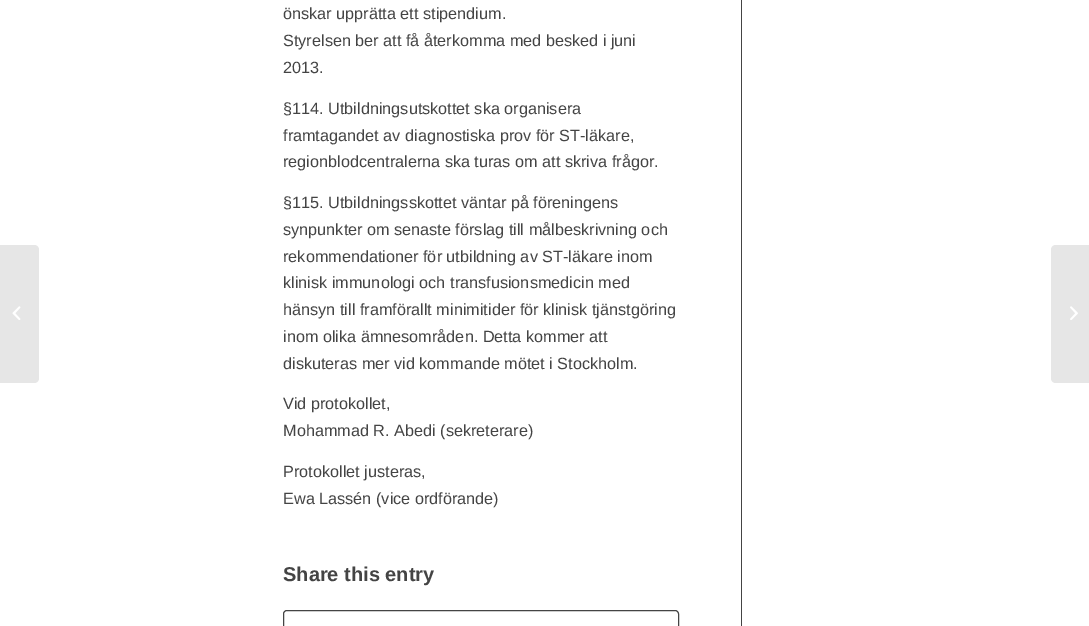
%!PS
<< /PageSize [1089 626] >> setpagedevice
/rgb { dup -16 bitshift 255 div exch dup -8 bitshift 255 and 255 div exch 255 and 255 div setrgbcolor } def
/font { [ exch dup neg 0 0 3 -1 roll 0 0 ] selectfont } def
/text { moveto show } def
/roundrect { 5 dict begin { /r /h /w /y /x } { exch def } forall
  x r add y moveto x w add y 2 copy h add r arct x w add y h add x 1 index r arct
  x y h add x y r arct x y 2 copy exch w add exch r arct closepath end } def
/picture { 5 dict begin { /h /w /y /x /name } { exch def } forall
  gsave x y translate w h scale
  w h 8 [w 0 0 h 0 0] name (r) file false 3 colorimage grestore end } def
0 626 translate 1 -1 scale
4 setmiterlimit
/s1 { /LiberationSans-Regular 16.25 font 16#444444 rgb } def
/s2 { /LiberationSans-Bold 20 font 16#444444 rgb } def
16#FFFFFF rgb
0 0 1089 626 rectfill
16#E6E6E6 rgb
0 245 moveto 34 245 lineto 37 245 39 247 39 250 curveto 39 378 lineto 39 381 37 383 34 383 curveto 0 383 lineto closepath fill
(pic1.raw) 12 306 9 14 picture
16#444444 rgb
741 0 1 626 rectfill
s1
(önskar upprätta ett stipendium.) 283 19 text
(Styrelsen ber att få återkomma med besked i juni) 283 46 text
(2013.) 283 73 text
(§114. Utbildningsutskottet ska organisera) 283 114 text
(framtagandet av diagnostiska prov för ST-läkare,) 283 141 text
(regionblodcentralerna ska turas om att skriva frågor.) 283 167 text
(§115. Utbildningsskottet väntar på föreningens) 283 208 text
(synpunkter om senaste förslag till målbeskrivning och) 283 235 text
(rekommendationer för utbildning av ST-läkare inom) 283 262 text
(klinisk immunologi och transfusionsmedicin med) 283 288 text
(hänsyn till framförallt minimitider för klinisk tjänstgöring) 283 315 text
(inom olika ämnesområden. Detta kommer att) 283 342 text
(diskuteras mer vid kommande mötet i Stockholm.) 283 369 text
(Vid protokollet,) 283 409 text
(Mohammad R. Abedi \(sekreterare\)) 283 436 text
(Protokollet justeras,) 283 477 text
(Ewa Lassén \(vice ordförande\)) 283 504 text
s2
(Share this entry) 283 581 text
283.5 610.5 395 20 3.5 roundrect stroke
16#E6E6E6 rgb
1056 245 moveto 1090 245 lineto 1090 383 lineto 1056 383 lineto 1053 383 1051 381 1051 378 curveto 1051 250 lineto 1051 247 1053 245 1056 245 curveto closepath fill
(pic2.raw) 1070 306 8 14 picture
showpage
